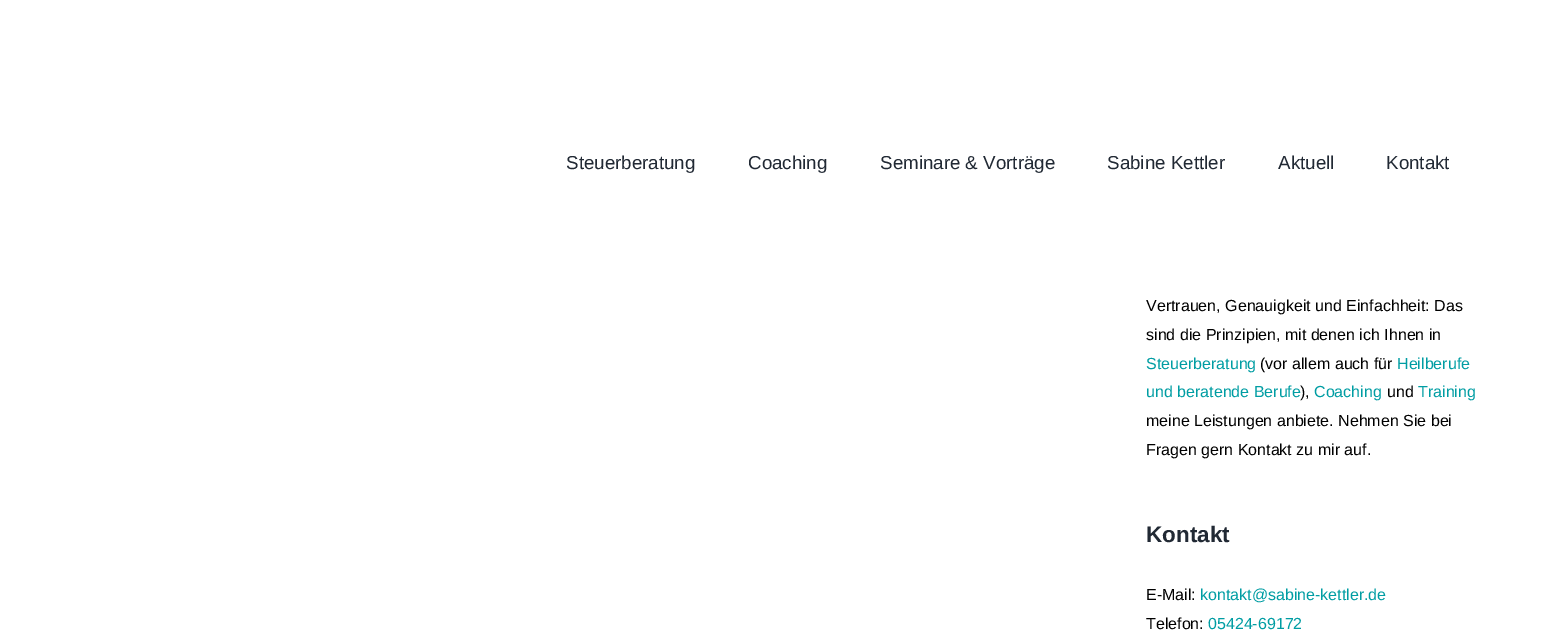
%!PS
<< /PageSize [1549 641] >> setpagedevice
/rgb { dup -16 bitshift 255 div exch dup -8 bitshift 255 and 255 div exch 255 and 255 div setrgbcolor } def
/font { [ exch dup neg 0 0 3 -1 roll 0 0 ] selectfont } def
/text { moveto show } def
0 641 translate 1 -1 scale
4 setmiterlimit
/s1 { /LiberationSans-Regular 18.75 font 16#212934 rgb } def
/s2 { /LiberationSans-Regular 16 font 16#000000 rgb } def
/s3 { /LiberationSans-Regular 16 font 16#009DA3 rgb } def
/s4 { /LiberationSans-Bold 22.5 font 16#212934 rgb } def
16#FFFFFF rgb
0 0 1549 641 rectfill
s1
(Steuerberatung) 566 169 text
(Coaching) 748 169 text
(Seminare & Vorträge) 880 169 text
(Sabine Kettler) 1107 169 text
(Aktuell) 1278 169 text
(Kontakt) 1386 169 text
s2
(Vertrauen, Genauigkeit und Einfachheit: Das) 1146 311 text
(sind die Prinzipien, mit denen ich Ihnen in) 1146 340 text
s3
(Steuerberatung) 1146 369 text
s2
(\(vor allem auch für) 1260 369 text
s3
(Heilberufe) 1397 369 text
(und beratende Berufe) 1146 397 text
s2
(\),) 1300 397 text
s3
(Coaching) 1314 397 text
s2
(und) 1387 397 text
s3
(Training) 1418 397 text
s2
(meine Leistungen anbiete. Nehmen Sie bei) 1146 426 text
(Fragen gern Kontakt zu mir auf.) 1146 455 text
s4
(Kontakt) 1146 542 text
s2
(E-Mail:) 1146 600 text
s3
(kontakt@sabine-kettler.de) 1200 600 text
s2
(Telefon:) 1146 629 text
s3
(05424-69172) 1208 629 text
showpage
